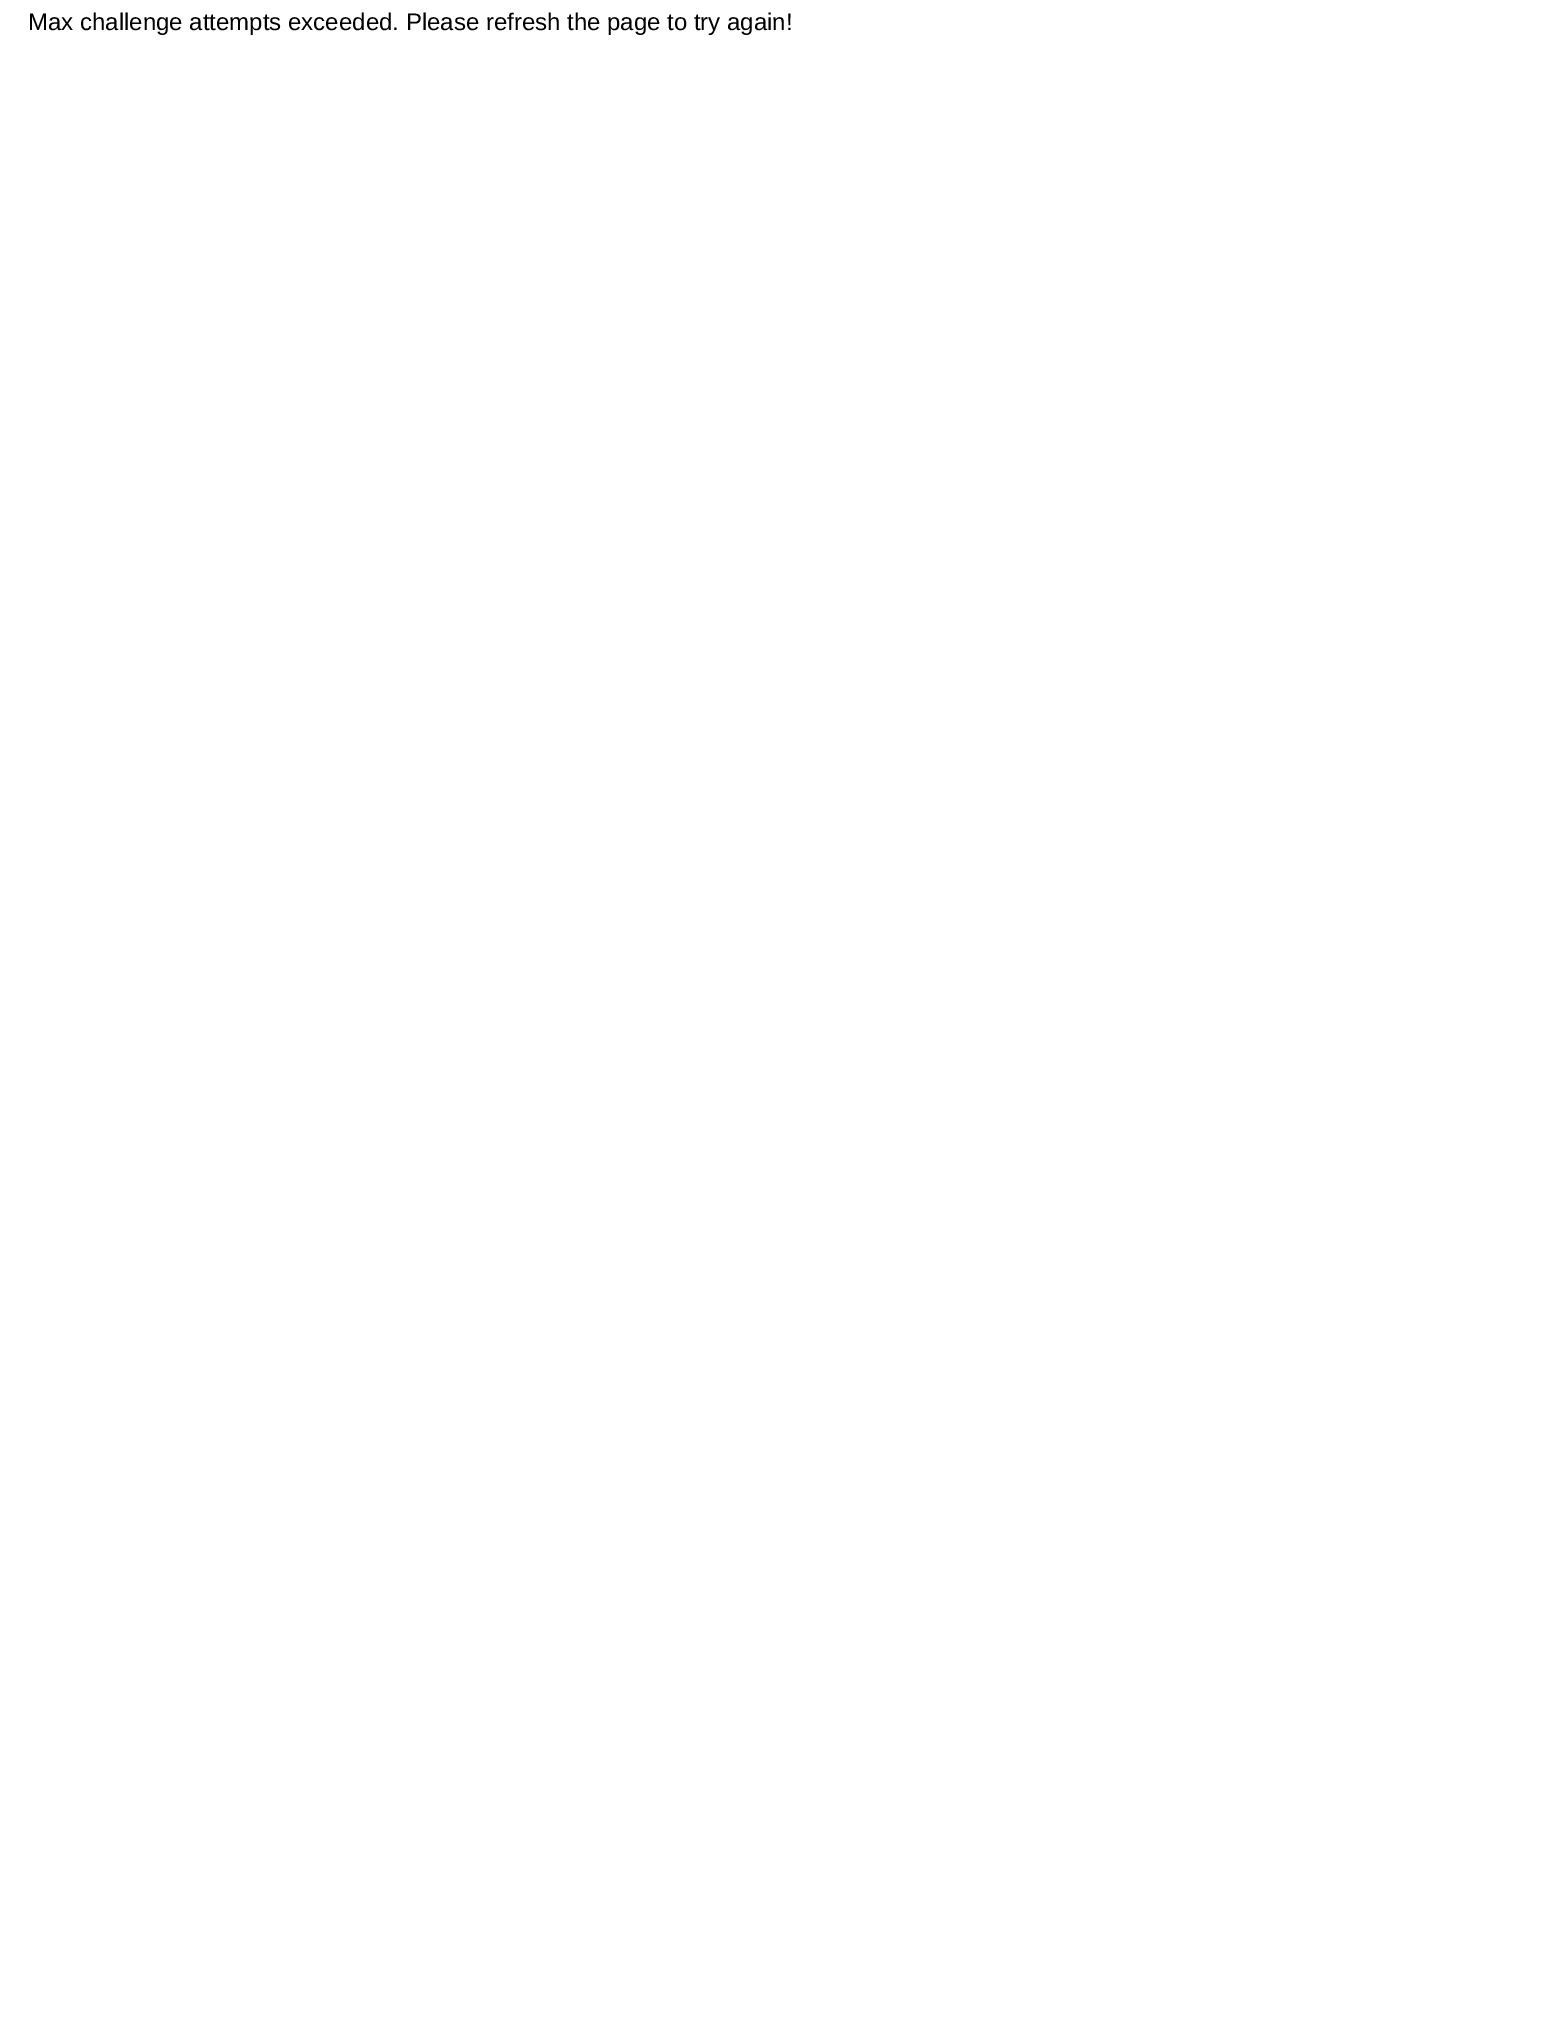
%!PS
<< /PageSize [1551 2018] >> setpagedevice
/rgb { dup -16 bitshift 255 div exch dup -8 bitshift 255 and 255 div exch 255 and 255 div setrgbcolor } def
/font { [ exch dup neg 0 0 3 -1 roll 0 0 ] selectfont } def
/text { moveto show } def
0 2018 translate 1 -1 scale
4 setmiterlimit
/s1 { /LiberationSans-Regular 24 font 16#000000 rgb } def
16#FFFFFF rgb
0 0 1551 2018 rectfill
s1
(Max challenge attempts exceeded. Please refresh the page to try again!) 28 30 text
showpage
